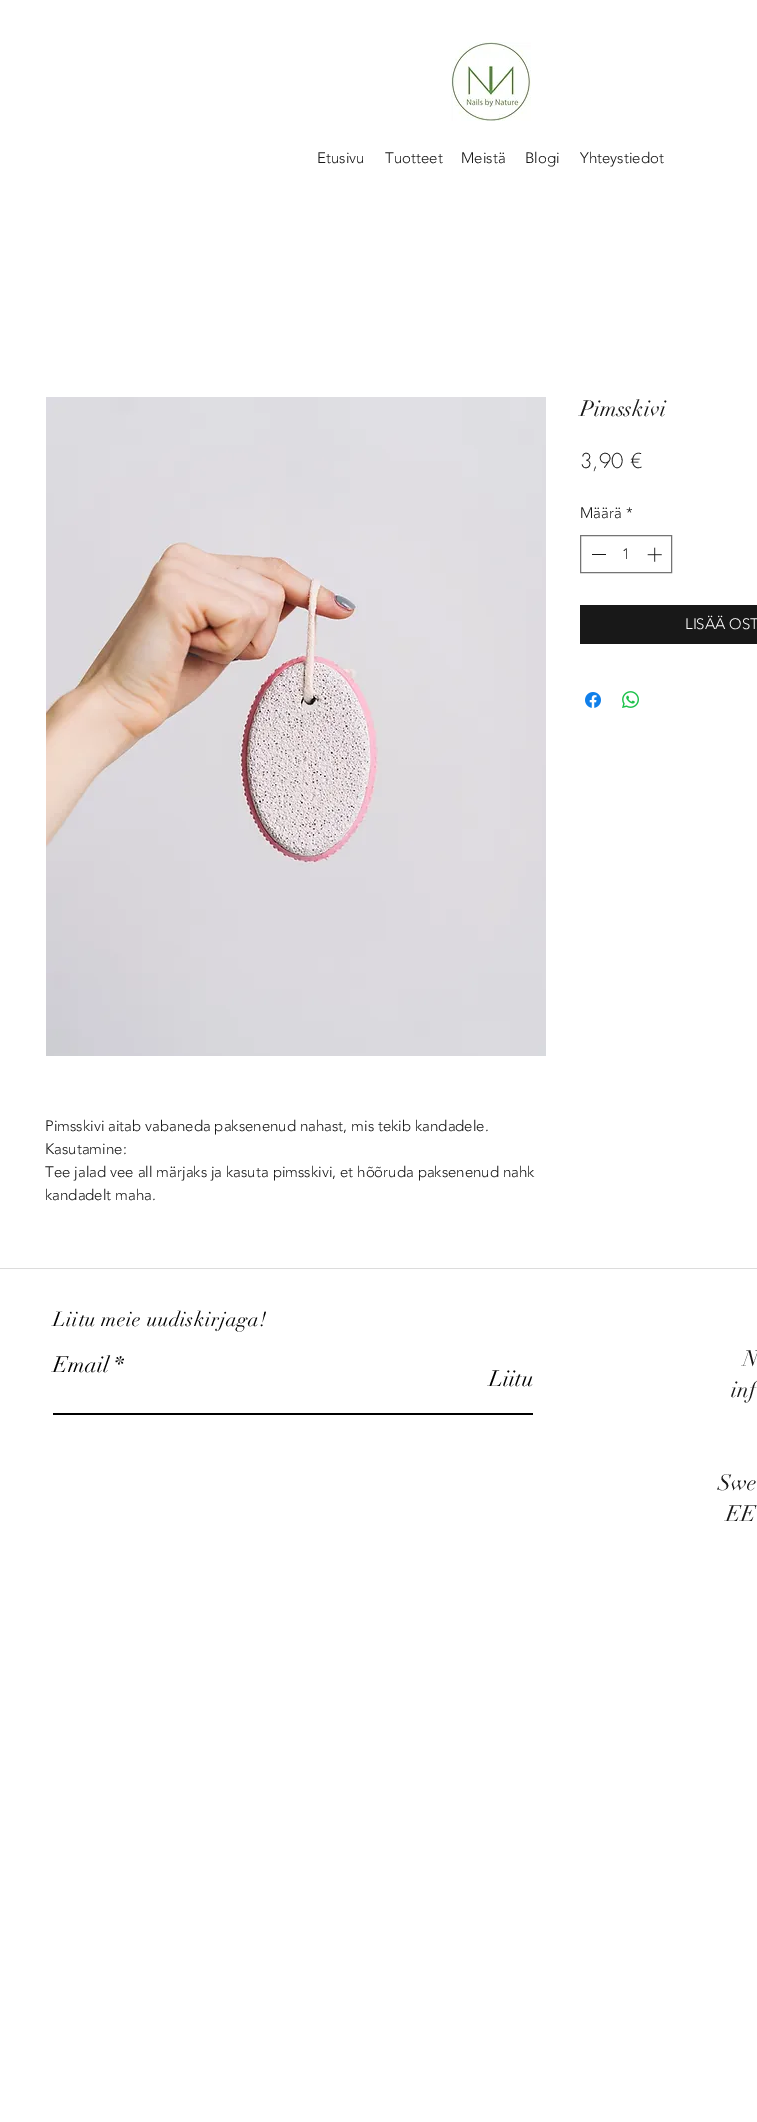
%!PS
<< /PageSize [757 2122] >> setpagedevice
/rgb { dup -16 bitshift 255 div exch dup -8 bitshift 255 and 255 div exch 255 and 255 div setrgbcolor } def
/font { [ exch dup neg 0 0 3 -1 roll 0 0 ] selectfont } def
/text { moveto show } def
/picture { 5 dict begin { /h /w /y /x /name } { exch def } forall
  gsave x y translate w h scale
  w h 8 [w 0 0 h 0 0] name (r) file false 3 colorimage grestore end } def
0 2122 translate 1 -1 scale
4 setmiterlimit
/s1 { /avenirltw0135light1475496-Light 15 font 16#181818 rgb } def
/s2 { /didot-Regular 22 font 16#181818 rgb } def
/s3 { /futura-Light 20 font 16#181818 rgb } def
/s4 { /avenirltw0135light1475496-Light 15 font 16#FFFFFF rgb } def
/s5 { /didot-Regular 22 font 16#000000 rgb } def
16#FFFFFF rgb
0 0 757 2122 rectfill
(pic1.raw) 451 42 80 79 picture
s1
(Etusivu) 317 163 text
(Tuotteet) 385 163 text
(Meistä) 461 163 text
(Blogi) 525 163 text
(Yhteystiedot) 580 163 text
s2
(Pimsskivi) 580 416 text
s3
(3,90 €) 580 468 text
s1
(Määrä *) 580 518 text
16#747474 rgb
580.5 535.5 91 37 rectstroke
16#181818 rgb
592 554 14 1 rectfill
(1) 622 559 text
(pic2.raw) 647 547 15 15 picture
580 605 177 39 rectfill
s4
(LISÄÄ OST) 685 629 text
(pic3.raw) 585 692 16 16 picture
(pic4.raw) 622 691 17 17 picture
(pic5.raw) 46 397 500 659 picture
s1
(Pimsskivi aitab vabaneda paksenenud nahast, mis tekib kandadele.) 45 1131 text
(Kasutamine:) 45 1154 text
(Tee jalad vee all märjaks ja kasuta pimsskivi, et hõõruda paksenenud nahk) 45 1177 text
(kandadelt maha.) 45 1200 text
16#DCDCDC rgb
0 1268 757 1 rectfill
/didot-Regular 20 font
16#000000 rgb
53 1326 moveto 0.6 0 (Liitu meie uudiskirjaga!) ashow
s5
(Email *) 53 1372 text
53 1413 480 2 rectfill
(Liitu) 489 1386 text
s2
(N) 743 1366 text
(inf) 731 1397 text
(Swe) 718 1490 text
(EE) 726 1521 text
showpage
